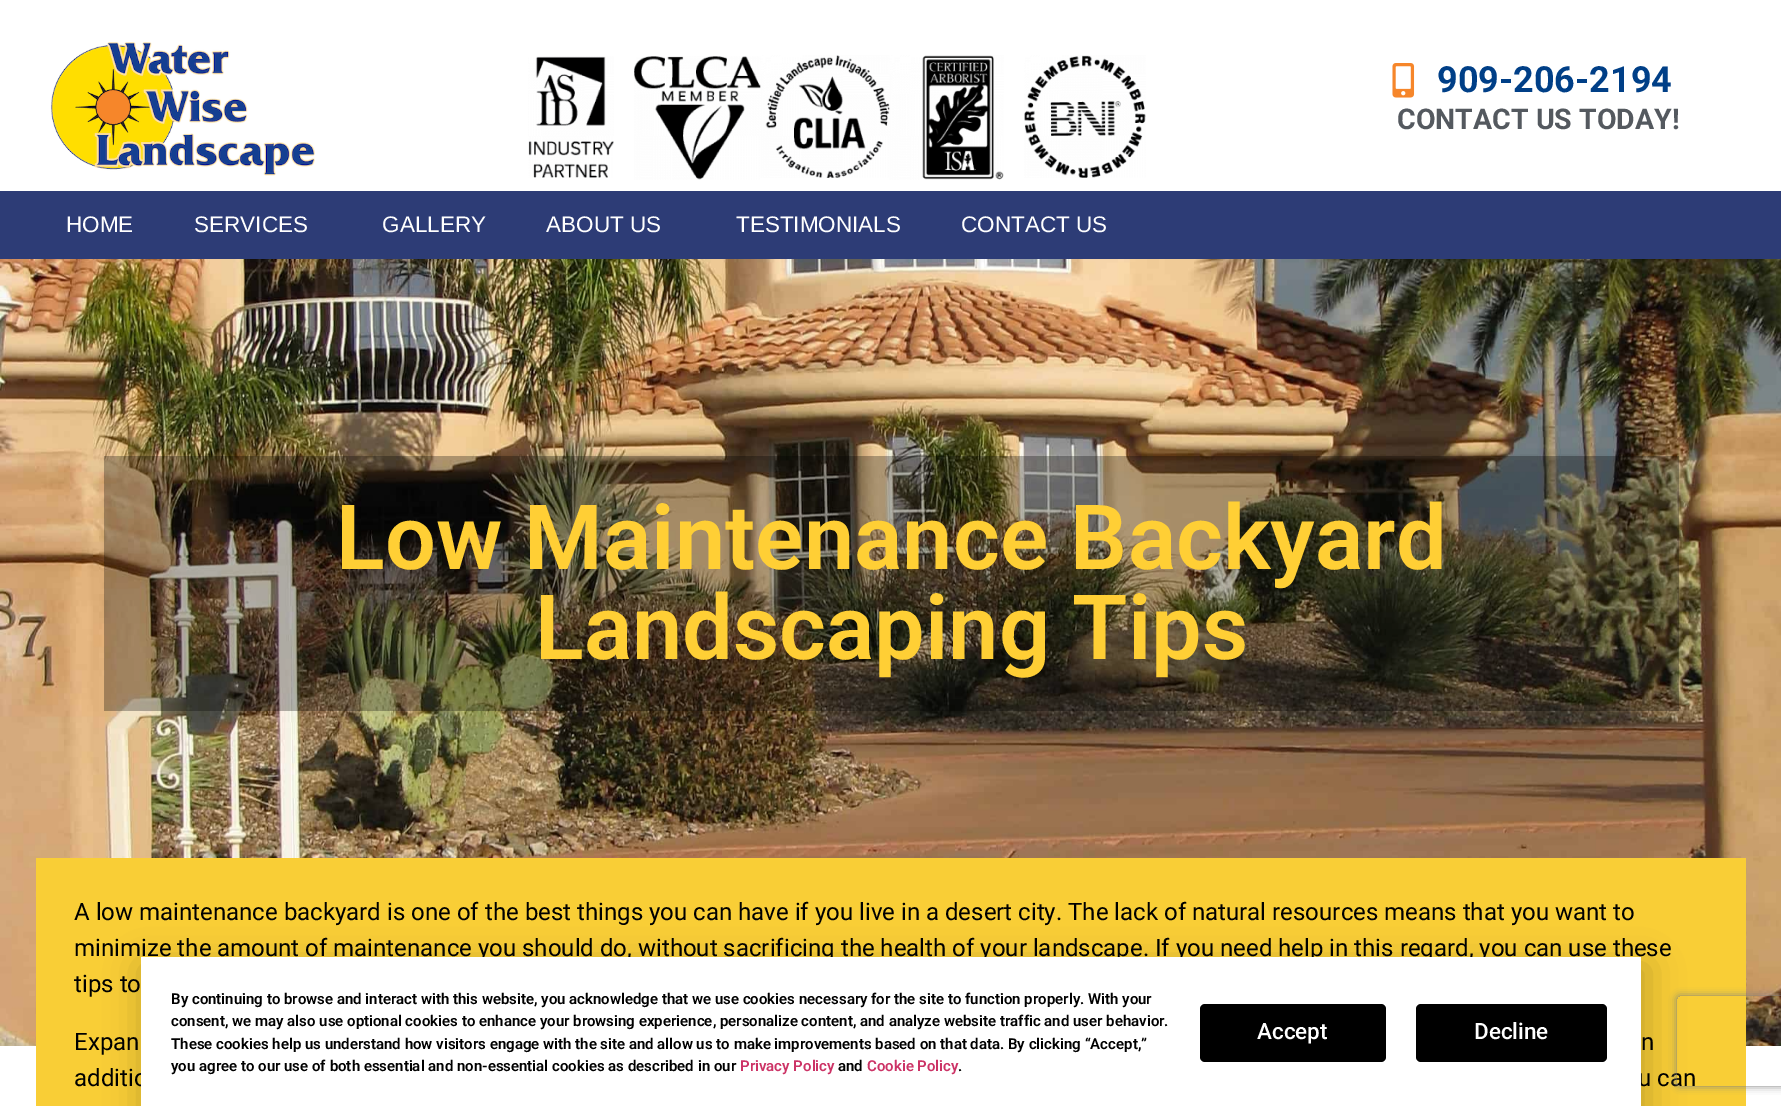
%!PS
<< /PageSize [1781 1106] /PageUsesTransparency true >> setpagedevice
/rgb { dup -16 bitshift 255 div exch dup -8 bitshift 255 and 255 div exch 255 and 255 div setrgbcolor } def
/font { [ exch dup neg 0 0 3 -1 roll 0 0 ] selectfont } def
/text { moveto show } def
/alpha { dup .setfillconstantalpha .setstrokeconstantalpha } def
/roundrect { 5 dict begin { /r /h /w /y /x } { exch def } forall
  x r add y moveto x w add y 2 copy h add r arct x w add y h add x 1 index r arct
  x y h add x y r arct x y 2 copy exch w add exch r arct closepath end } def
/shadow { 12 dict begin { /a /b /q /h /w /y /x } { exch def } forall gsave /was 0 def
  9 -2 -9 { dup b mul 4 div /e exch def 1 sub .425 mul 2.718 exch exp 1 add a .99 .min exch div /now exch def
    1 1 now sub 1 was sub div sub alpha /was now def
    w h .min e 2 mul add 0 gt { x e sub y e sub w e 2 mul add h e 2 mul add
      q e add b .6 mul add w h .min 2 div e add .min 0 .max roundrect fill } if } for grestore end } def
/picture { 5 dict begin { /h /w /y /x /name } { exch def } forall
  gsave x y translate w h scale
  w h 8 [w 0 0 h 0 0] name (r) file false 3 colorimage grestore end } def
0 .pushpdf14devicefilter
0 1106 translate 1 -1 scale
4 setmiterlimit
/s1 { /Roboto-Bold 36 font 16#003F87 rgb } def
/s2 { /Roboto-Bold 28.5 font 16#54595F rgb } def
/s3 { /LiberationSans-Regular 22.5 font 16#FFFFFF rgb } def
/s4 { /Roboto-SemiBold 90 font 16#FFCF35 rgb } def
/s5 { /Roboto-Regular 24 font 16#000000 rgb } def
/s6 { /Roboto-SemiBold 15 font 16#000000 rgb } def
/s7 { /Roboto-SemiBold 15 font 16#CC3366 rgb } def
/s8 { /Roboto-Medium 22.5 font 16#FFFFFF rgb } def
16#FFFFFF rgb
0 0 1781 1106 rectfill
(pic1.raw) 51 42 264 134 picture
(pic2.raw) 528 56 86 122 picture
(pic3.raw) 634 56 127 124 picture
(pic4.raw) 760 55 130 123 picture
(pic5.raw) 889 55 115 125 picture
(pic6.raw) 1024 55 122 123 picture
(pic7.raw) 1392 63 23 35 picture
s1
(909-206-2194) 1437 92 text
s2
(CONTACT US TODAY!) 1397 129 text
16#2D3C76 rgb
0 191 1781 68 rectfill
s3
(HOME) 66 232 text
(SERVICES) 194 232 text
(GALLERY) 382 232 text
(ABOUT US) 546 232 text
(TESTIMONIALS) 736 232 text
(CONTACT US) 961 232 text
(pic8.raw) 0 259 1781 787 picture
0.29 alpha
16#000000 rgb
104 456 1575 255 rectfill
1 alpha
s4
(Low Maintenance Backyard) 336 569 text
(Landscaping Tips) 535 659 text
16#F9CE36 rgb
36 858 1710 248 rectfill
s5
(A low maintenance backyard is one of the best things you can have if you live in a desert city. The lack of natural resources means that you want to) 74 920 text
(minimize the amount of maintenance you should do, without sacrificing the health of your landscape. If you need help in this regard, you can use these) 74 956 text
(tips to) 74 992 text
(Expan) 74 1050 text
(n) 1641 1050 text
(additio) 74 1086 text
(u can) 1638 1086 text
gsave
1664 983 moveto 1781 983 lineto 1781 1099 lineto 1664 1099 lineto closepath 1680 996 moveto 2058 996 lineto 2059.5 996 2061 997.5 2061 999 curveto 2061 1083 lineto 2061 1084.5 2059.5 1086 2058 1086 curveto 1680 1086 lineto 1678.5 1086 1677 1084.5 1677 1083 curveto 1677 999 lineto 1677 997.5 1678.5 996 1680 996 curveto closepath eoclip newpath
16#808080 rgb
1677 996 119 90 3 4 1 shadow
grestore
140 965 1509 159 0 17 0.2 shadow
16#FFFFFF rgb
141 957 1500 149 rectfill
s6
(By continuing to browse and interact with this website, you acknowledge that we use cookies necessary for the site to function properly. With your) 171 1004 text
(consent, we may also use optional cookies to enhance your browsing experience, personalize content, and analyze website traffic and user behavior.) 171 1026 text
(These cookies help us understand how visitors engage with the site and allow us to make improvements based on that data. By clicking “Accept,”) 171 1049 text
(you agree to our use of both essential and non-essential cookies as described in our) 171 1071 text
s7
(Privacy Policy) 740 1071 text
s6
(and) 838 1071 text
s7
(Cookie Policy) 867 1071 text
s6
(.) 958 1071 text
1200 1004 186 58 5 roundrect fill
s8
(Accept) 1257 1039 text
16#000000 rgb
1416 1004 191 58 5 roundrect fill
s8
(Decline) 1474 1039 text
.poppdf14devicefilter showpage
